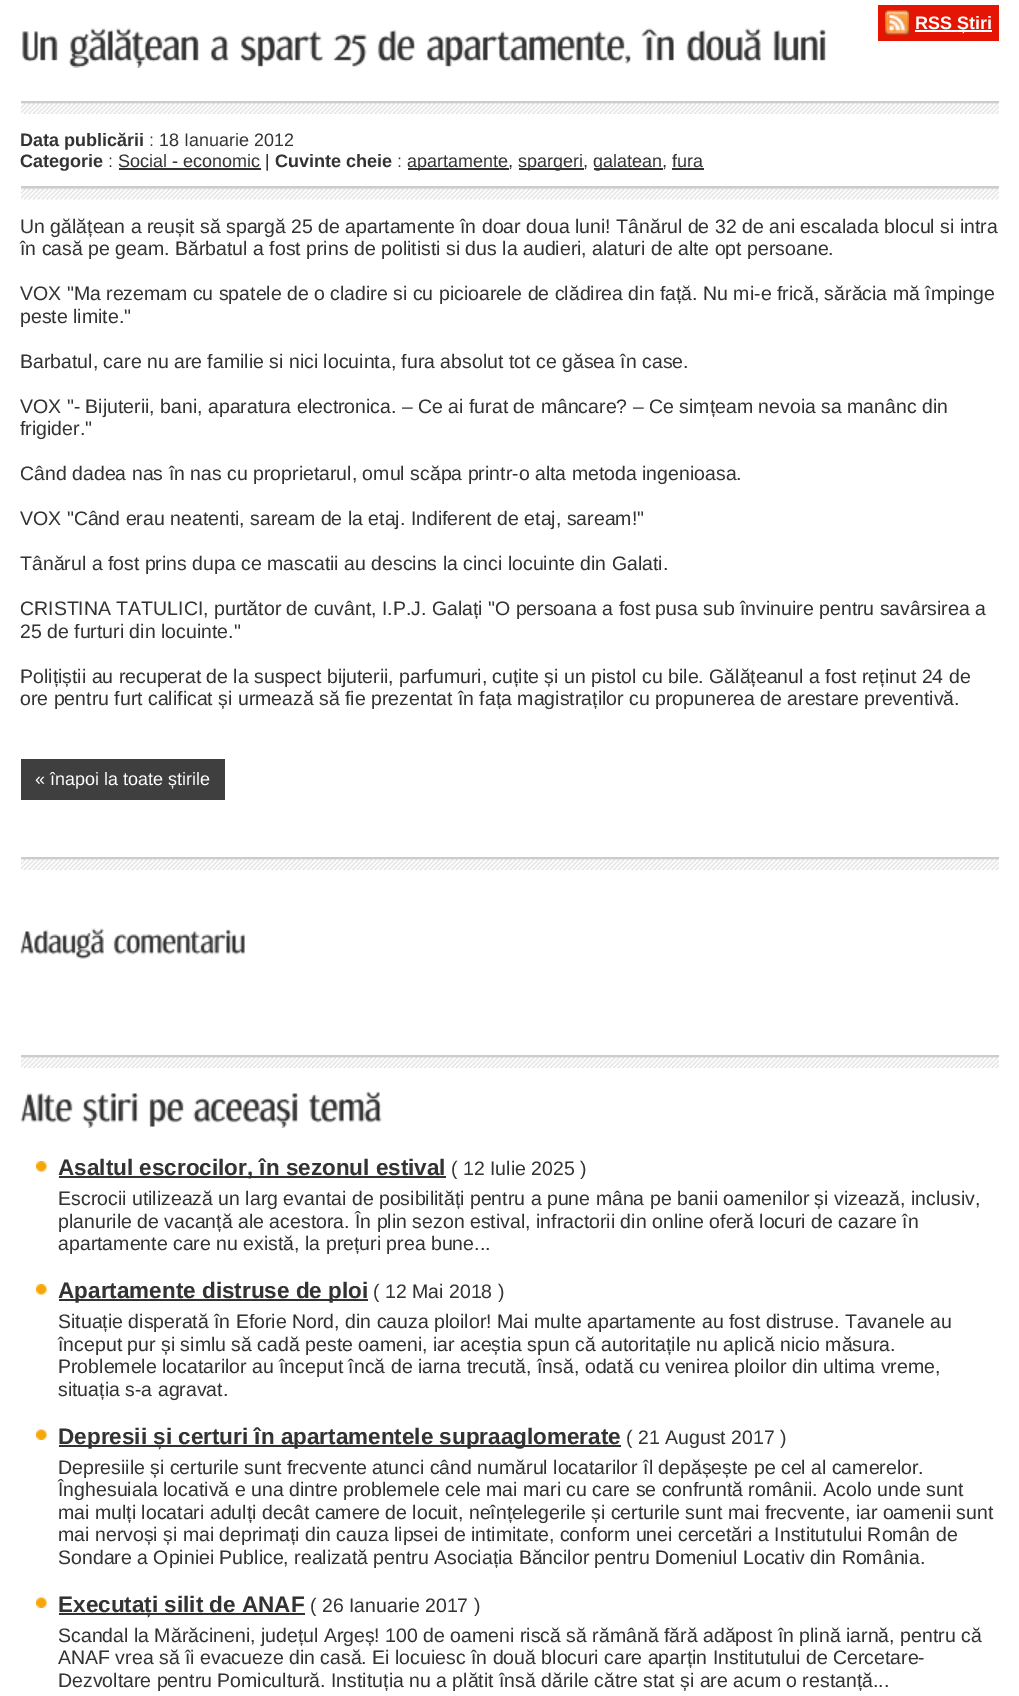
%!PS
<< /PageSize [1019 1696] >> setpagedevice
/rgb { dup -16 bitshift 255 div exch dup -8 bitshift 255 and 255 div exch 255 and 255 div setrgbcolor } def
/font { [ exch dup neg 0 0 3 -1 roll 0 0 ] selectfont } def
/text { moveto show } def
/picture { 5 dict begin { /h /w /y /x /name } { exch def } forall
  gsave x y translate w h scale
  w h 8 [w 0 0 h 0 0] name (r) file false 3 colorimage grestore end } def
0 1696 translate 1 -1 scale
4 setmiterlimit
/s1 { /LiberationSans-Bold 18 font 16#FFFFFF rgb } def
/s2 { /LiberationSans-Bold 18 font 16#333333 rgb } def
/s3 { /LiberationSans-Regular 18 font 16#333333 rgb } def
/s4 { /LiberationSans-Regular 19.5 font 16#333333 rgb } def
/s5 { /LiberationSans-Regular 18 font 16#FFFFFF rgb } def
/s6 { /LiberationSans-Bold 22.5 font 16#333333 rgb } def
16#FFFFFF rgb
0 0 1019 1696 rectfill
16#E41502 rgb
878 5 121 36 rectfill
(pic1.raw) 885 10 24 25 picture
16#FFFFFF rgb
915 30 77 2 rectfill
s1
(RSS Știri) 915 29 text
(pic2.raw) 22 31 36 31 picture
(pic3.raw) 68 28 131 40 picture
(pic4.raw) 210 35 19 27 picture
(pic5.raw) 240 31 83 36 picture
(pic6.raw) 333 34 34 33 picture
(pic7.raw) 377 29 39 33 picture
(pic8.raw) 426 31 205 36 picture
(pic9.raw) 641 28 33 33 picture
(pic10.raw) 686 28 75 34 picture
(pic11.raw) 773 29 53 33 picture
(pic12.raw) 21 103 978 11 picture
16#CCCCCC rgb
21 101 978 2 rectfill
s2
(Data publicării) 20 146 text
s3
(: 18 Ianuarie 2012) 149 146 text
s2
(Categorie) 20 167 text
s3
(: Social - economic |) 108 167 text
119 168 142 2 rectfill
s2
(Cuvinte cheie) 275 167 text
s3
(:) 397 167 text
408 168 101 2 rectfill
(apartamente,) 407 167 text
519 168 65 2 rectfill
(spargeri,) 518 167 text
594 168 69 2 rectfill
(galatean, fura) 593 167 text
672 168 32 2 rectfill
(pic13.raw) 21 188 978 12 picture
16#CCCCCC rgb
21 186 978 2 rectfill
s4
(Un gălățean a reușit să spargă 25 de apartamente în doar doua luni! Tânărul de 32 de ani escalada blocul si intra) 20 233 text
(în casă pe geam. Bărbatul a fost prins de politisti si dus la audieri, alaturi de alte opt persoane.) 20 255 text
(VOX "Ma rezemam cu spatele de o cladire si cu picioarele de clădirea din față. Nu mi-e frică, sărăcia mă împinge) 20 300 text
(peste limite.") 20 323 text
(Barbatul, care nu are familie si nici locuinta, fura absolut tot ce găsea în case.) 20 368 text
(VOX "- Bijuterii, bani, aparatura electronica. – Ce ai furat de mâncare? – Ce simțeam nevoia sa manânc din) 20 413 text
(frigider.") 20 435 text
(Când dadea nas în nas cu proprietarul, omul scăpa printr-o alta metoda ingenioasa.) 20 480 text
(VOX "Când erau neatenti, saream de la etaj. Indiferent de etaj, saream!") 20 525 text
(Tânărul a fost prins dupa ce mascatii au descins la cinci locuinte din Galati.) 20 570 text
(CRISTINA TATULICI, purtător de cuvânt, I.P.J. Galați "O persoana a fost pusa sub învinuire pentru savârsirea a) 20 615 text
(25 de furturi din locuinte.") 20 638 text
(Polițiștii au recuperat de la suspect bijuterii, parfumuri, cuțite și un pistol cu bile. Gălățeanul a fost reținut 24 de) 20 683 text
(ore pentru furt calificat și urmează să fie prezentat în fața magistraților cu propunerea de arestare preventivă.) 20 705 text
16#3F3F3F rgb
21 759 204 41 rectfill
s5
(« înapoi la toate știrile) 35 785 text
(pic14.raw) 21 859 978 11 picture
16#CCCCCC rgb
21 857 978 2 rectfill
(pic15.raw) 20 928 84 31 picture
(pic16.raw) 113 929 132 26 picture
(pic17.raw) 21 1057 978 11 picture
21 1055 978 2 rectfill
(pic18.raw) 20 1093 53 30 picture
(pic19.raw) 82 1093 57 35 picture
(pic20.raw) 149 1099 35 28 picture
(pic21.raw) 193 1093 105 35 picture
(pic22.raw) 308 1091 74 32 picture
(pic23.raw) 36 1161 11 11 picture
16#333333 rgb
59 1176 387 2 rectfill
s6
(Asaltul escrocilor, în sezonul estival) 58 1175 text
s4
(\( 12 Iulie 2025 \)) 451 1175 text
(Escrocii utilizează un larg evantai de posibilități pentru a pune mâna pe banii oamenilor și vizează, inclusiv,) 58 1205 text
(planurile de vacanță ale acestora. În plin sezon estival, infractorii din online oferă locuri de cazare în) 58 1228 text
(apartamente care nu există, la prețuri prea bune...) 58 1250 text
(pic23.raw) 36 1284 11 11 picture
59 1299 309 2 rectfill
s6
(Apartamente distruse de ploi) 58 1298 text
s4
(\( 12 Mai 2018 \)) 373 1298 text
(Situație disperată în Eforie Nord, din cauza ploilor! Mai multe apartamente au fost distruse. Tavanele au) 58 1328 text
(început pur și simlu să cadă peste oameni, iar aceștia spun că autoritațile nu aplică nicio măsura.) 58 1351 text
(Problemele locatarilor au început încă de iarna trecută, însă, odată cu venirea ploilor din ultima vreme,) 58 1373 text
(situația s-a agravat.) 58 1396 text
(pic24.raw) 36 1429 11 11 picture
59 1445 562 2 rectfill
s6
(Depresii și certuri în apartamentele supraaglomerate) 58 1444 text
s4
(\( 21 August 2017 \)) 626 1444 text
(Depresiile și certurile sunt frecvente atunci când numărul locatarilor îl depășește pe cel al camerelor.) 58 1474 text
(Înghesuiala locativă e una dintre problemele cele mai mari cu care se confruntă românii. Acolo unde sunt) 58 1496 text
(mai mulți locatari adulți decât camere de locuit, neînțelegerile și certurile sunt mai frecvente, iar oamenii sunt) 58 1519 text
(mai nervoși și mai deprimați din cauza lipsei de intimitate, conform unei cercetări a Institutului Român de) 58 1541 text
(Sondare a Opiniei Publice, realizată pentru Asociația Băncilor pentru Domeniul Locativ din România.) 58 1564 text
(pic24.raw) 36 1597 11 11 picture
59 1613 246 2 rectfill
s6
(Executați silit de ANAF) 58 1612 text
s4
(\( 26 Ianuarie 2017 \)) 310 1612 text
(Scandal la Mărăcineni, județul Argeș! 100 de oameni riscă să rămână fără adăpost în plină iarnă, pentru că) 58 1642 text
(ANAF vrea să îi evacueze din casă. Ei locuiesc în două blocuri care aparțin Institutului de Cercetare-) 58 1664 text
(Dezvoltare pentru Pomicultură. Instituția nu a plătit însă dările către stat și are acum o restanță...) 58 1687 text
showpage
